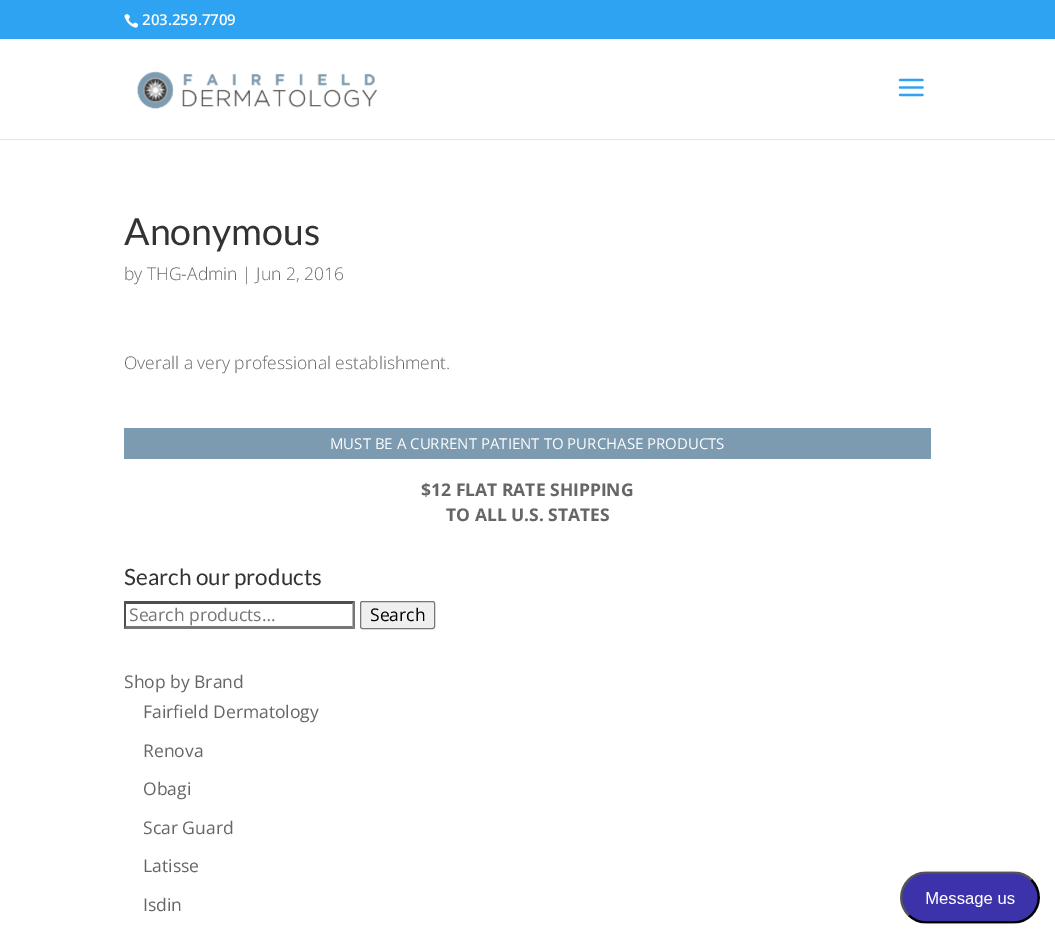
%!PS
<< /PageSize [1055 938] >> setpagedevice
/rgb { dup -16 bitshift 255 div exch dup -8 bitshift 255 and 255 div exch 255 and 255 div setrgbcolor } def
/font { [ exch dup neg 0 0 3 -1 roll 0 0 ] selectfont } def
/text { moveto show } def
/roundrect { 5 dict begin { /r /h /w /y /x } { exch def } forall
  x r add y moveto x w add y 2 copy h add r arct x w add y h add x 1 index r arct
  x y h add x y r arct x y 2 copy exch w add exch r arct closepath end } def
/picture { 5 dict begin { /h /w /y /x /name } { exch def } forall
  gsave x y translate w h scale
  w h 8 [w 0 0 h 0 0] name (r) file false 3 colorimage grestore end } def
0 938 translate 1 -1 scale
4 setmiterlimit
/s1 { /OpenSans-SemiBold 15 font 16#FFFFFF rgb } def
/s2 { /Lato-Regular 37.5 font 16#333333 rgb } def
/s3 { /OpenSans-Light 17.5 font 16#666666 rgb } def
/s4 { /OpenSans-Regular 15 font 16#FFFFFF rgb } def
/s5 { /OpenSans-Bold 17.5 font 16#666666 rgb } def
/s6 { /Lato-Regular 22.5 font 16#333333 rgb } def
/s7 { /OpenSans-Regular 17.5 font 16#757575 rgb } def
/s8 { /OpenSans-Regular 17.5 font 16#000000 rgb } def
/s9 { /OpenSans-Regular 17.5 font 16#666666 rgb } def
16#FFFFFF rgb
0 0 1055 938 rectfill
16#2EA3F2 rgb
0 0 1055 39 rectfill
(pic1.raw) 124 14 15 14 picture
s1
(203.259.7709) 142 25 text
16#E6E6E6 rgb
0 139 1055 1 rectfill
(pic2.raw) 136 71 241 38 picture
(pic3.raw) 898 78 26 19 picture
s2
(Anonymous) 124 245 text
s3
(by THG-Admin | Jun 2, 2016) 124 280 text
(Overall a very professional establishment.) 124 369 text
16#7C9AB0 rgb
124 428 807 31 rectfill
s4
(MUST BE A CURRENT PATIENT TO PURCHASE PRODUCTS) 330 449 text
s5
($12 FLAT RATE SHIPPING) 421 496 text
(TO ALL U.S. STATES) 446 521 text
s6
(Search our products) 124 585 text
16#4F4F4F rgb
124 601 moveto 355 601 lineto 352 604 lineto 126 604 lineto closepath fill
16#767676 rgb
355 601 moveto 355 629 lineto 352.5 626 lineto 352.5 604 lineto closepath fill
355 629 moveto 124 629 lineto 126 626 lineto 352 626 lineto closepath fill
16#4F4F4F rgb
124 629 moveto 124 601 lineto 126 604 lineto 126 626 lineto closepath fill
s7
(Search products…) 129 621 text
16#EFEFEF rgb
360.5 601.5 74 27 2 roundrect gsave fill grestore
16#767676 rgb
stroke
s8
(Search) 370 621 text
s9
(Shop by Brand) 124 688 text
(Fairfield Dermatology) 143 718 text
(Renova) 143 757 text
(Obagi) 143 795 text
(Scar Guard) 143 834 text
(Latisse) 143 872 text
(Isdin) 143 911 text
(pic4.raw) 900 871 140 53 picture
showpage
